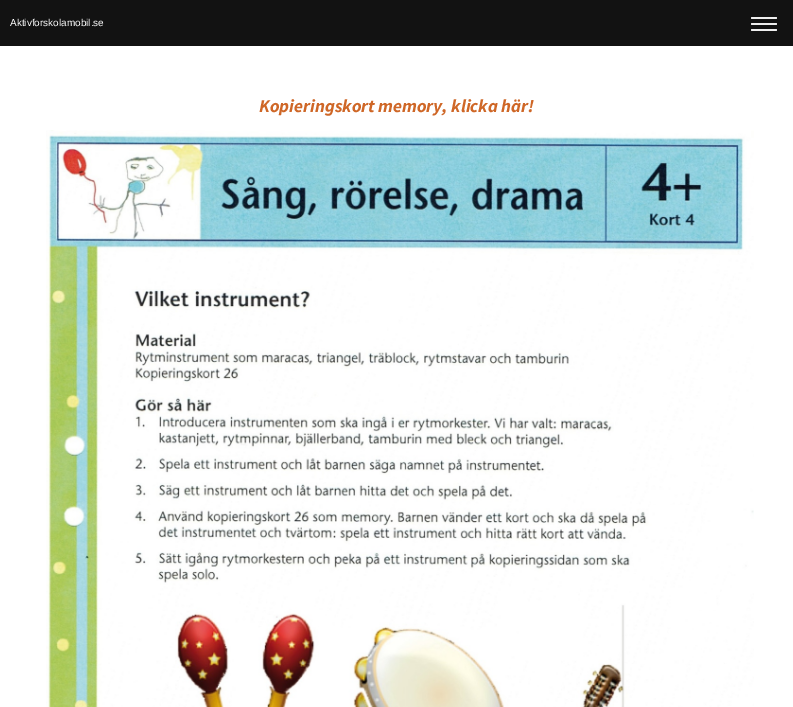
%!PS
<< /PageSize [793 707] >> setpagedevice
/rgb { dup -16 bitshift 255 div exch dup -8 bitshift 255 and 255 div exch 255 and 255 div setrgbcolor } def
/font { [ exch dup neg 0 0 3 -1 roll 0 0 ] selectfont } def
/text { moveto show } def
/roundrect { 5 dict begin { /r /h /w /y /x } { exch def } forall
  x r add y moveto x w add y 2 copy h add r arct x w add y h add x 1 index r arct
  x y h add x y r arct x y 2 copy exch w add exch r arct closepath end } def
/picture { 5 dict begin { /h /w /y /x /name } { exch def } forall
  gsave x y translate w h scale
  w h 8 [w 0 0 h 0 0] name (r) file false 3 colorimage grestore end } def
0 707 translate 1 -1 scale
4 setmiterlimit
/s1 { /LiberationSans-Regular 10 font 16#FFFFFF rgb } def
/s2 { /SourceSansPro-BoldItalic 18 font 16#CF6727 rgb } def
16#FFFFFF rgb
0 0 793 707 rectfill
16#121212 rgb
0 0 793 46 rectfill
s1
(Aktivforskolamobil.se) 10 26 text
16#EEEEEE rgb
751 17 26 2 1 roundrect fill
751 23 26 2 1 roundrect fill
751 29 26 2 1 roundrect fill
s2
(Kopieringskort memory, klicka här!) 259 112 text
(pic1.raw) 46 130 708 577 picture
showpage
